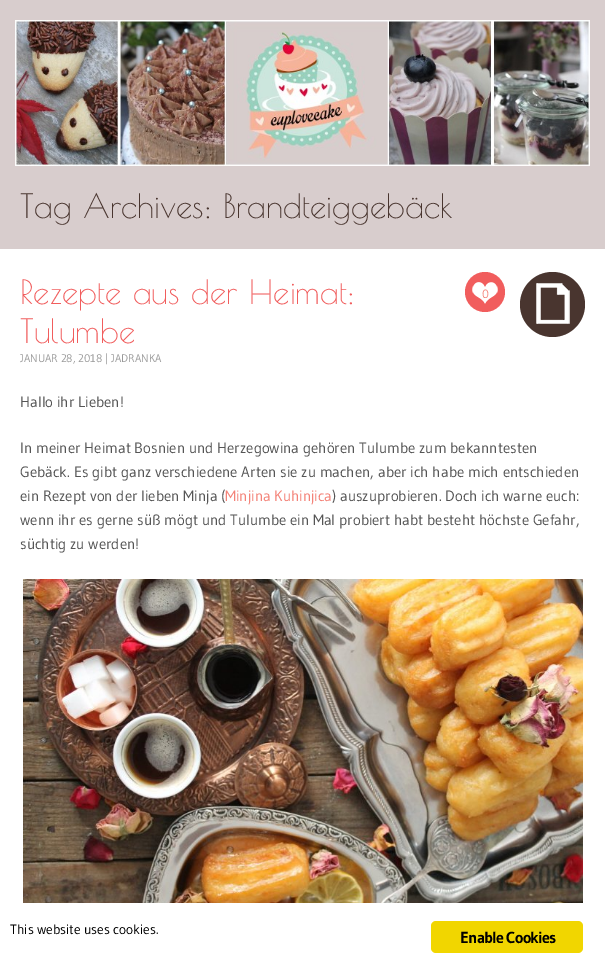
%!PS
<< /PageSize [605 969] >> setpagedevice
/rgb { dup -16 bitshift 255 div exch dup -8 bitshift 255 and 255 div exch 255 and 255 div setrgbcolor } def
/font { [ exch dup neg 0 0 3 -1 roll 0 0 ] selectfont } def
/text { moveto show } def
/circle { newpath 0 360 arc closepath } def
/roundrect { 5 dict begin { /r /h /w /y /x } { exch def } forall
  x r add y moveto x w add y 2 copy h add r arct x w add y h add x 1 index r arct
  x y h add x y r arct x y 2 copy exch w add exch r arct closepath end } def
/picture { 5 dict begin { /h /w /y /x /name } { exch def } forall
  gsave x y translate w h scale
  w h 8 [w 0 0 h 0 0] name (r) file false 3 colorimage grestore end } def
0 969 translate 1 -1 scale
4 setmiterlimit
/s1 { /PoiretOne-Regular 33 font 16#49352F rgb } def
/s2 { /PoiretOne-Regular 33 font 16#F15D5D rgb } def
/s3 { /Gudea-Regular 12 font 16#F48278 rgb } def
/s4 { /Gudea-Regular 11 font 16#999999 rgb } def
/s5 { /Gudea-Regular 15 font 16#555555 rgb } def
/s6 { /Gudea-Regular 15 font 16#F48278 rgb } def
/s7 { /Gudea-Regular 13.6 font 16#000000 rgb } def
16#D8CDCD rgb
0 0 605 969 rectfill
(pic1.raw) 15 20 575 146 picture
s1
(Tag Archives: Brandteiggebäck) 20 218 text
16#FFFFFF rgb
0 249 605 720 rectfill
s2
(Rezepte aus der Heimat:) 20 304 text
(Tulumbe) 20 343 text
485 292 20 circle fill
(pic2.raw) 472 282 26 22 picture
s3
(0) 482 298 text
16#49352F rgb
552.5 304.5 32.5 circle fill
(pic3.raw) 536 283 34 41 picture
s4
(JANUAR 28, 2018 | JADRANKA) 20 362 text
s5
(Hallo ihr Lieben!) 20 407 text
(In meiner Heimat Bosnien und Herzegowina gehören Tulumbe zum bekanntesten) 20 453 text
(Gebäck. Es gibt ganz verschiedene Arten sie zu machen, aber ich habe mich entschieden) 20 477 text
(ein Rezept von der lieben Minja \() 20 501 text
s6
(Minjina Kuhinjica) 225 501 text
s5
(\) auszuprobieren. Doch ich warne euch:) 332 501 text
(wenn ihr es gerne süß mögt und Tulumbe ein Mal probiert habt besteht höchste Gefahr,) 20 525 text
(süchtig zu werden!) 20 549 text
(pic4.raw) 23 579 560 324 picture
s7
(This website uses cookies.) 10 934 text
16#F1D600 rgb
431 921 152 32 5 roundrect fill
/Gudea-Bold 16 font
16#000000 rgb
460 943 moveto -0.75 0 (Enable Cookies) ashow
showpage
